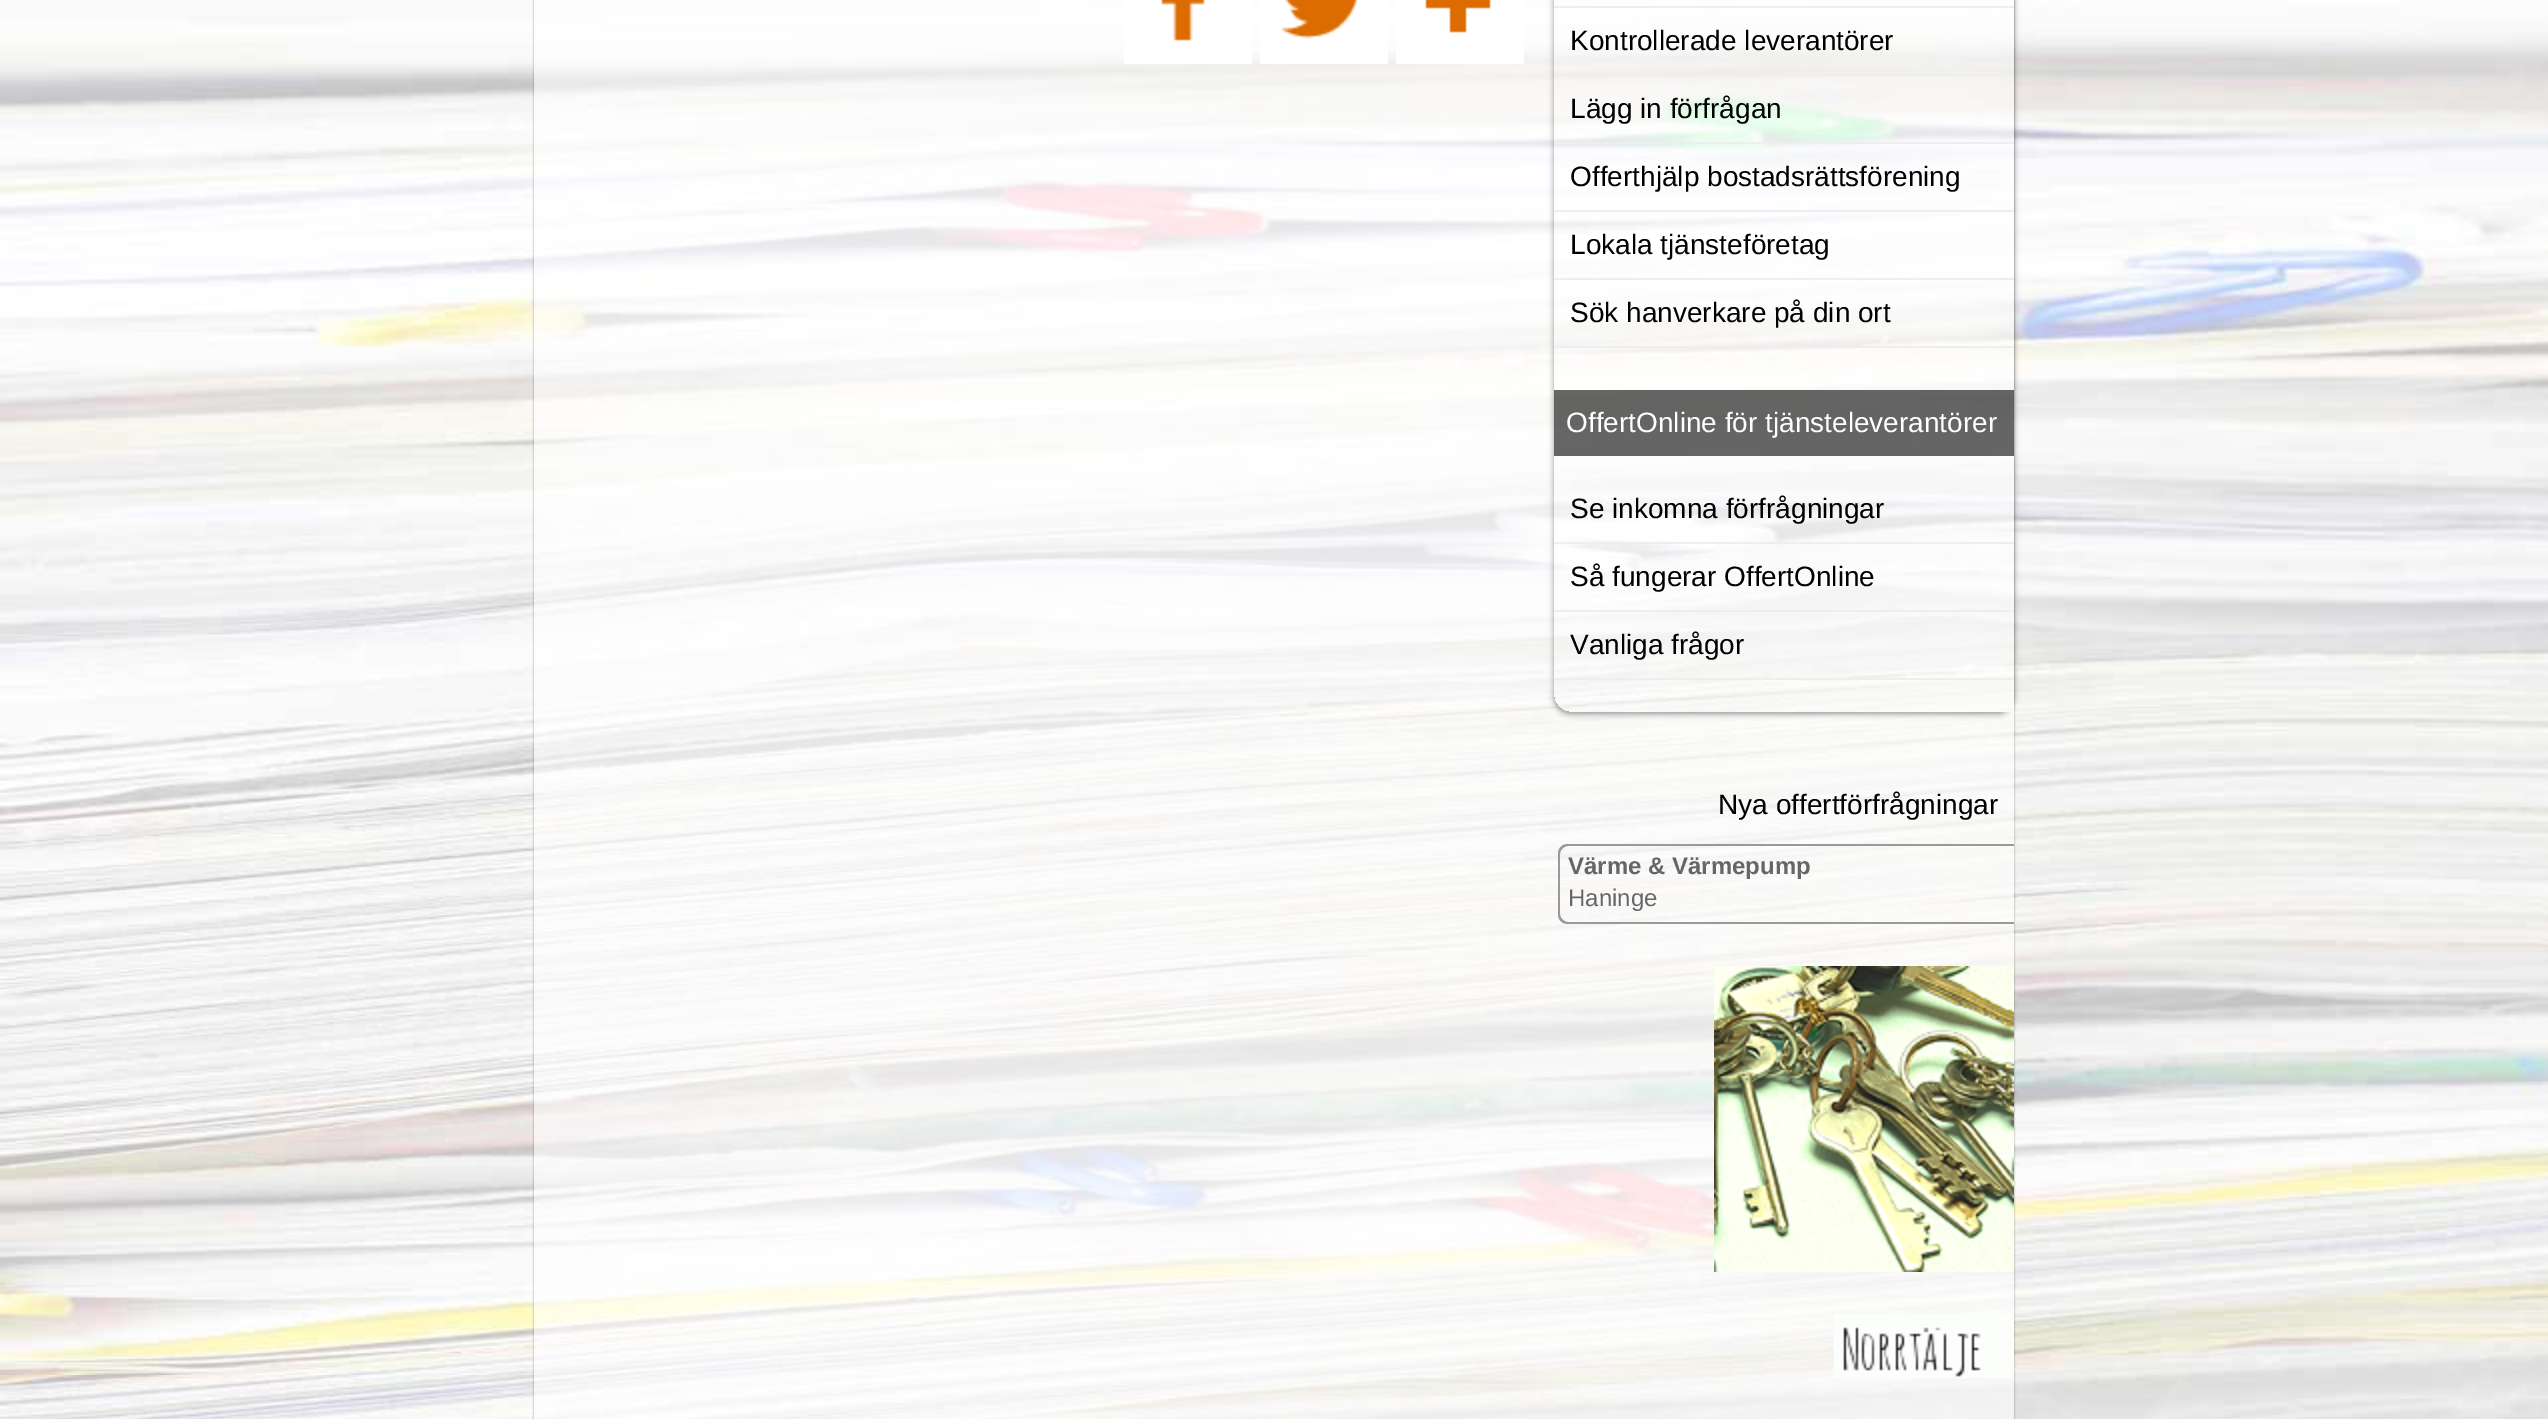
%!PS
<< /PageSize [2548 1419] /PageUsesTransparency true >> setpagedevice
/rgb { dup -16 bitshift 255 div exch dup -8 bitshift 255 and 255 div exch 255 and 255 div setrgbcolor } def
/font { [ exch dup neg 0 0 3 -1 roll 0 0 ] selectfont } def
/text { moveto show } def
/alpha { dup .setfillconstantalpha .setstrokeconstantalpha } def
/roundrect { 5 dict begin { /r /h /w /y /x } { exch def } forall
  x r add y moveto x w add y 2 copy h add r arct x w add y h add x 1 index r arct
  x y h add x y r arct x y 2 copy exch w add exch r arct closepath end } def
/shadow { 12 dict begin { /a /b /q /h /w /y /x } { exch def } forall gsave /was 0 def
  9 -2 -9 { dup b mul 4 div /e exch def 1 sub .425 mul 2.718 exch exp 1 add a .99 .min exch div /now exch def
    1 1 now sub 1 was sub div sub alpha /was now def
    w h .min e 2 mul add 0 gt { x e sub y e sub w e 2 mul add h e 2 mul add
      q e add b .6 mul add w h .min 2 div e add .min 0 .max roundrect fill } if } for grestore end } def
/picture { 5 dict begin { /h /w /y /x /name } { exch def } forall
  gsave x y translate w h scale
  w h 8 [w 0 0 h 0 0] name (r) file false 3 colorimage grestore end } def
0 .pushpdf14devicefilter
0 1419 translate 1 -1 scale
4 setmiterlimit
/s1 { /LiberationSans-Regular 28 font 16#000000 rgb } def
/s2 { /LiberationSans-Regular 28 font 16#FFFFFF rgb } def
/s3 { /LiberationSans-Bold 24 font 16#666666 rgb } def
/s4 { /LiberationSans-Regular 24 font 16#666666 rgb } def
16#FFFFFF rgb
0 0 2548 1419 rectfill
(pic1.raw) 2546 0 2 1419 picture
(pic2.raw) 0 0 2548 1419 picture
gsave
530 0 moveto 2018 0 lineto 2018 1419 lineto 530 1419 lineto closepath 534 -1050 moveto 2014 -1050 lineto 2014 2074 lineto 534 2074 lineto closepath eoclip newpath
16#000000 rgb
534 -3 1480 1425 0 1 0.4 shadow
grestore
0.6 alpha
534 0 1480 1419 rectfill
1 alpha
(pic3.raw) 1124 0 128 64 picture
(pic4.raw) 1260 0 128 64 picture
(pic5.raw) 1396 0 128 64 picture
gsave
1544 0 moveto 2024 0 lineto 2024 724 lineto 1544 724 lineto closepath 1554 -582 moveto 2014 -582 lineto 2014 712 lineto 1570 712 lineto 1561 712 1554 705 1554 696 curveto closepath eoclip newpath
16#000000 rgb
1554 -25 460 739 16 3 0.4 shadow
grestore
16#EEEEEE rgb
1554 6 460 2 rectfill
1554 74 460 2 rectfill
s1
(Kontrollerade leverantörer) 1570 50 text
16#EEEEEE rgb
1554 142 460 2 rectfill
s1
(Lägg in förfrågan) 1570 118 text
16#EEEEEE rgb
1554 210 460 2 rectfill
s1
(Offerthjälp bostadsrättsförening) 1570 186 text
16#EEEEEE rgb
1554 278 460 2 rectfill
s1
(Lokala tjänsteföretag) 1570 254 text
16#EEEEEE rgb
1554 346 460 2 rectfill
s1
(Sök hanverkare på din ort) 1570 322 text
0.6 alpha
1554 390 460 66 rectfill
1 alpha
s2
(OffertOnline för tjänsteleverantörer) 1566 432 text
16#EEEEEE rgb
1554 542 460 2 rectfill
s1
(Se inkomna förfrågningar) 1570 518 text
16#EEEEEE rgb
1554 610 460 2 rectfill
s1
(Så fungerar OffertOnline) 1570 586 text
16#EEEEEE rgb
1554 678 460 2 rectfill
s1
(Vanliga frågor) 1570 654 text
(Nya offertförfrågningar) 1718 814 text
16#999999 rgb
1568 844 moveto 2014 844 lineto 2014 924 lineto 1568 924 lineto 1562 924 1558 920 1558 914 curveto 1558 854 lineto 1558 848 1562 844 1568 844 curveto closepath 1568 846 moveto 2014 846 lineto 2014 922 lineto 1568 922 lineto 1564 922 1560 918 1560 914 curveto 1560 854 lineto 1560 850 1564 846 1568 846 curveto closepath eofill
s3
(Värme & Värmepump) 1568 874 text
s4
(Haninge) 1568 906 text
(pic6.raw) 1714 966 300 306 picture
(pic7.raw) 1834 1314 180 64 picture
.poppdf14devicefilter showpage
